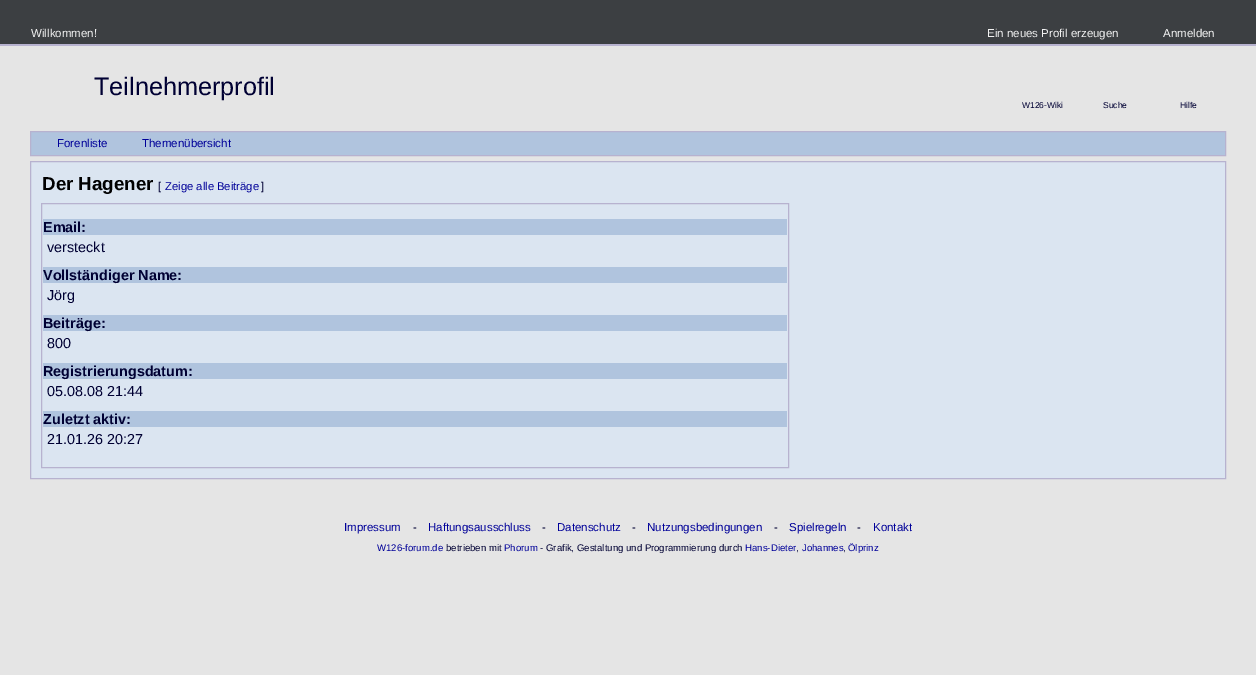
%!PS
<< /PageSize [1256 675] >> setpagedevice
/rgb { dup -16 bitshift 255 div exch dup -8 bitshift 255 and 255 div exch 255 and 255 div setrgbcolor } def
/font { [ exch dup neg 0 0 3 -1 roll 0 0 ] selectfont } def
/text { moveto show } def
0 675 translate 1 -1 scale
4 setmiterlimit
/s1 { /LiberationSans-Regular 11.5 font 16#F1F1F1 rgb } def
/s2 { /LiberationSans-Regular 25.25 font 16#000033 rgb } def
/s3 { /LiberationSans-Regular 8.5 font 16#000033 rgb } def
/s4 { /LiberationSans-Regular 11.5 font 16#000099 rgb } def
/s5 { /LiberationSans-Bold 18.75 font 16#000000 rgb } def
/s6 { /LiberationSans-Regular 11.25 font 16#000033 rgb } def
/s7 { /LiberationSans-Regular 11.25 font 16#000099 rgb } def
/s8 { /LiberationSans-Bold 14.4 font 16#000033 rgb } def
/s9 { /LiberationSans-Regular 14.4 font 16#000033 rgb } def
/s10 { /LiberationSans-Regular 11.5 font 16#000033 rgb } def
/s11 { /LiberationSans-Regular 9.6 font 16#000099 rgb } def
/s12 { /LiberationSans-Regular 9.6 font 16#000033 rgb } def
16#E5E5E5 rgb
0 0 1256 675 rectfill
16#3C3F42 rgb
0 0 1256 44 rectfill
16#B7B2CF rgb
0 44 1256 2 rectfill
s1
(Willkommen!) 31 37 text
(Ein neues Profil erzeugen) 987 37 text
(Anmelden) 1163 37 text
s2
(Teilnehmerprofil) 94 95 text
s3
(W126-Wiki) 1022 108 text
(Suche) 1103 108 text
(Hilfe) 1180 108 text
16#B0C4DE rgb
30.5 131.5 moveto 1225.5 131.5 lineto 1225.5 155.5 lineto 30.5 155.5 lineto closepath gsave fill grestore
16#B7B2CF rgb
stroke
s4
(Forenliste) 57 147 text
(Themenübersicht) 142 147 text
16#DBE5F1 rgb
30.5 161.5 moveto 1225.5 161.5 lineto 1225.5 478.5 lineto 30.5 478.5 lineto closepath gsave fill grestore
16#B7B2CF rgb
stroke
s5
(Der Hagener) 42 190 text
s6
([) 158 190 text
s7
(Zeige alle Beiträge) 165 190 text
s6
(]) 261 190 text
16#B7B2CF rgb
41.5 203.5 747 264 rectstroke
16#B0C4DE rgb
43 219 744 16 rectfill
s8
(Email:) 43 232 text
s9
(versteckt) 47 252 text
16#B0C4DE rgb
43 267 744 16 rectfill
s8
(Vollständiger Name:) 43 280 text
s9
(Jörg) 47 300 text
16#B0C4DE rgb
43 315 744 16 rectfill
s8
(Beiträge:) 43 328 text
s9
(800) 47 348 text
16#B0C4DE rgb
43 363 744 16 rectfill
s8
(Registrierungsdatum:) 43 376 text
s9
(05.08.08 21:44) 47 396 text
16#B0C4DE rgb
43 411 744 16 rectfill
s8
(Zuletzt aktiv:) 43 424 text
s9
(21.01.26 20:27) 47 444 text
s4
(Impressum) 344 531 text
s10
(-) 413 531 text
s4
(Haftungsausschluss) 428 531 text
s10
(-) 542 531 text
s4
(Datenschutz) 557 531 text
s10
(-) 632 531 text
s4
(Nutzungsbedingungen) 647 531 text
s10
(-) 774 531 text
s4
(Spielregeln) 789 531 text
s10
(-) 857 531 text
s4
(Kontakt) 873 531 text
s11
(W126-forum.de) 377 551 text
s12
(betrieben mit) 446 551 text
s11
(Phorum) 504 551 text
s12
(- Grafik, Gestaltung und Programmierung durch) 540 551 text
s11
(Hans-Dieter) 745 551 text
s12
(,) 796 551 text
s11
(Johannes) 802 551 text
s12
(,) 843 551 text
s11
(Ölprinz) 848 551 text
showpage
